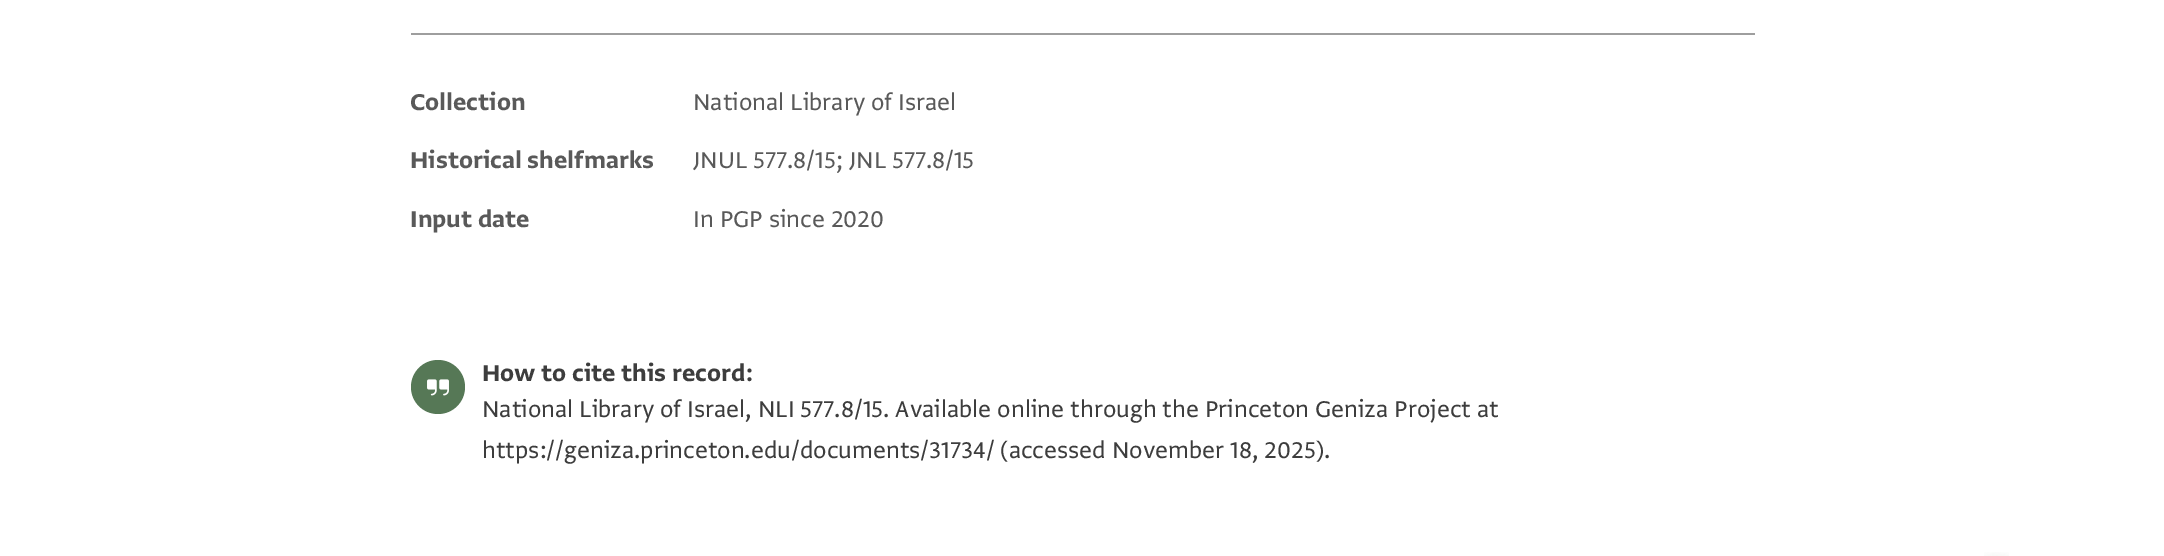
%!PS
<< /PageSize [2164 556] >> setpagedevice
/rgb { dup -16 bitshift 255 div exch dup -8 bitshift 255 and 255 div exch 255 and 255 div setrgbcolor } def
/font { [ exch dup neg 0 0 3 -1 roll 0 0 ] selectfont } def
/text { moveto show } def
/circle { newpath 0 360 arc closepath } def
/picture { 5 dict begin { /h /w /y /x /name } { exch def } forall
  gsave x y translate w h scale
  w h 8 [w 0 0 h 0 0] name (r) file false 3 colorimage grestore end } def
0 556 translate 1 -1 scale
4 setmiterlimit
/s1 { /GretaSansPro-Bold 27 font 16#595959 rgb } def
/s2 { /GretaSansPro-Regular 27 font 16#595959 rgb } def
/s3 { /GretaSansPro-Bold 27 font 16#3D3D3D rgb } def
/s4 { /GretaSansPro-Regular 27 font 16#3D3D3D rgb } def
16#FFFFFF rgb
0 0 2164 556 rectfill
16#9E9E9E rgb
411 33 1344 2 rectfill
s1
(Collection) 410 110 text
s2
(National Library of Israel) 693 110 text
s1
(Historical shelfmarks) 410 168 text
s2
(JNUL 577.8/15; JNL 577.8/15) 693 168 text
s1
(Input date) 410 227 text
s2
(In PGP since 2020) 693 227 text
16#567856 rgb
438 387 27 circle fill
(pic1.raw) 427 379 22 17 picture
s3
(How to cite this record:) 482 381 text
s4
(National Library of Israel, NLI 577.8/15. Available online through the Princeton Geniza Project at) 482 417 text
(https://geniza.princeton.edu/documents/31734/ \(accessed November 18, 2025\).) 482 458 text
(pic2.raw) 1984 552 25 4 picture
showpage
